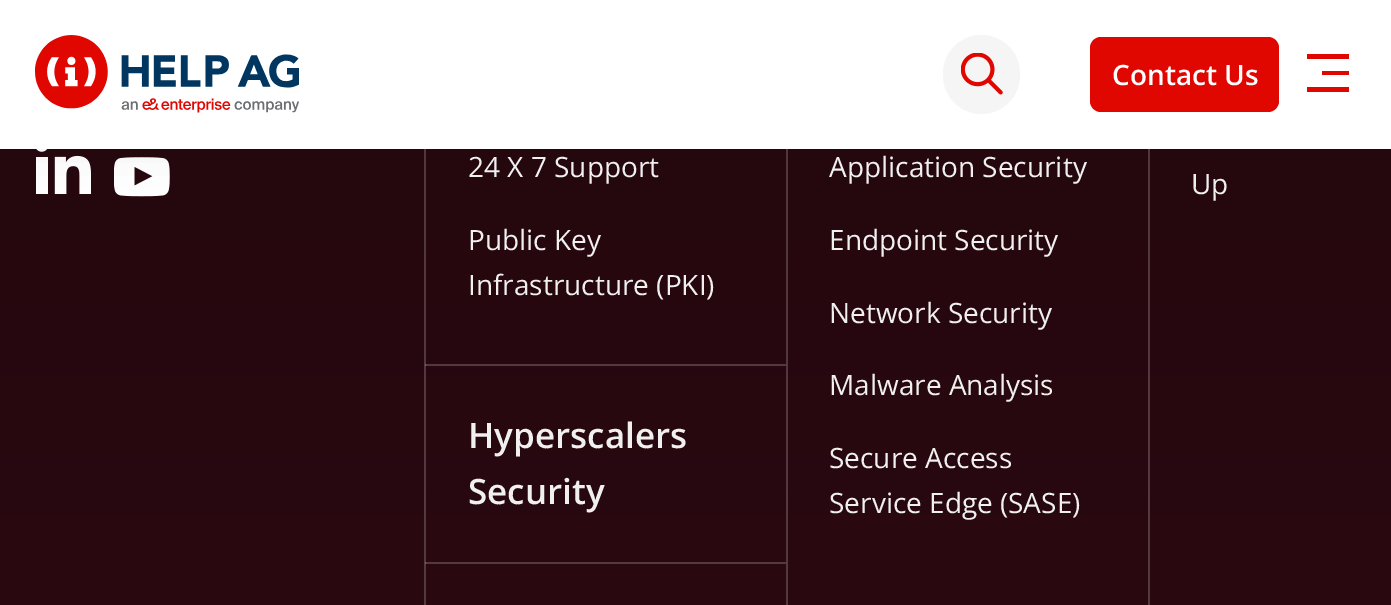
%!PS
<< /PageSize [1391 605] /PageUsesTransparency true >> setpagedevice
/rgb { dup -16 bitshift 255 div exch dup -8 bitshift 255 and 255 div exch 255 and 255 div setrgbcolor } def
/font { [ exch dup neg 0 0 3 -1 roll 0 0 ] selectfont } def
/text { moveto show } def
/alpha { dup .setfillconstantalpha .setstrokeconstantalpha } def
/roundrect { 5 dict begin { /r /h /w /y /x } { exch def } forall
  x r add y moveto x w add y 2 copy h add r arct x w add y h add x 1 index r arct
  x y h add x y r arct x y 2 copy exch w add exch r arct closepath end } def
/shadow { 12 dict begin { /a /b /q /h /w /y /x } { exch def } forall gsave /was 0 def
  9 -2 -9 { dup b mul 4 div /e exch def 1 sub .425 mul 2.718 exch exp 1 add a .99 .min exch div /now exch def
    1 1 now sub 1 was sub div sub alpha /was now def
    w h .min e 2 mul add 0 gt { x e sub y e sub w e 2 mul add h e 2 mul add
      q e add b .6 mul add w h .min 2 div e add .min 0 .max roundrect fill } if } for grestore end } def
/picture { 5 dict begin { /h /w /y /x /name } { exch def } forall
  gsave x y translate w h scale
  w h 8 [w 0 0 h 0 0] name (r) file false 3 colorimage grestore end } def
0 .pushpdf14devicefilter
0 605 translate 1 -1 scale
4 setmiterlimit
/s1 { /OpenSans-SemiBold 28 font 16#FFFFFF rgb } def
/s2 { /OpenSans-Regular 28 font 16#F0F0F0 rgb } def
/s3 { /OpenSans-SemiBold 35 font 16#F0F0F0 rgb } def
16#FFFFFF rgb
0 0 1391 605 rectfill
gsave 0 149 moveto 1391 149 lineto 1391 605 lineto 0 605 lineto closepath clip newpath
<< /ShadingType 2 /ColorSpace /DeviceRGB /Coords [696 -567 696 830] /Extend [true true] /Function << /FunctionType 2 /Domain [0 1] /C0 [0.114 0.012 0.035] /C1 [0.176 0.039 0.071] /N 1 >> >> shfill grestore
gsave 1148 149 moveto 1150 149 lineto 1150 605 lineto 1148 605 lineto closepath clip newpath
<< /ShadingType 2 /ColorSpace /DeviceRGB /Coords [696 -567 696 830] /Extend [true true] /Function << /FunctionType 2 /Domain [0 1] /C0 [0.29 0.208 0.227] /C1 [0.341 0.231 0.255] /N 1 >> >> shfill grestore
gsave 425 562 moveto 786 562 lineto 786 564 lineto 425 564 lineto closepath clip newpath
<< /ShadingType 2 /ColorSpace /DeviceRGB /Coords [696 -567 696 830] /Extend [true true] /Function << /FunctionType 2 /Domain [0 1] /C0 [0.29 0.208 0.227] /C1 [0.341 0.231 0.255] /N 1 >> >> shfill grestore
gsave 425 364 moveto 786 364 lineto 786 366 lineto 425 366 lineto closepath clip newpath
<< /ShadingType 2 /ColorSpace /DeviceRGB /Coords [696 -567 696 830] /Extend [true true] /Function << /FunctionType 2 /Domain [0 1] /C0 [0.29 0.208 0.227] /C1 [0.341 0.231 0.255] /N 1 >> >> shfill grestore
gsave 424 149 moveto 426 149 lineto 426 605 lineto 424 605 lineto closepath clip newpath
<< /ShadingType 2 /ColorSpace /DeviceRGB /Coords [696 -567 696 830] /Extend [true true] /Function << /FunctionType 2 /Domain [0 1] /C0 [0.29 0.208 0.227] /C1 [0.341 0.231 0.255] /N 1 >> >> shfill grestore
gsave 786 149 moveto 788 149 lineto 788 605 lineto 786 605 lineto closepath clip newpath
<< /ShadingType 2 /ColorSpace /DeviceRGB /Coords [696 -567 696 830] /Extend [true true] /Function << /FunctionType 2 /Domain [0 1] /C0 [0.29 0.208 0.227] /C1 [0.341 0.231 0.255] /N 1 >> >> shfill grestore
(pic3.raw) 36 149 55 45 picture
(pic4.raw) 114 157 56 40 picture
16#000000 rgb
7 7 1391 149 0 26 0.06 shadow
16#FFFFFF rgb
0 0 1391 149 rectfill
(pic1.raw) 35 35 264 78 picture
16#F5F5F5 rgb
943 35 77 79 38.5 roundrect fill
(pic2.raw) 961 53 42 42 picture
16#E00700 rgb
1090 37 189 75 11 roundrect fill
s1
(Contact Us) 1112 85 text
16#E00700 rgb
1307 87 moveto 1307 92 lineto 1349 92 lineto 1349 87 lineto closepath 1322 71 moveto 1322 75 lineto 1349 75 lineto 1349 71 lineto closepath 1307 54 moveto 1307 59 lineto 1349 59 lineto 1349 54 lineto closepath fill
gsave 425 562 moveto 426 562 lineto 426 564 lineto 425 564 lineto closepath clip newpath
<< /ShadingType 2 /ColorSpace /DeviceRGB /Coords [696 -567 696 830] /Extend [true true] /Function << /FunctionType 2 /Domain [0 1] /C0 [0.431 0.365 0.38] /C1 [0.475 0.384 0.404] /N 1 >> >> shfill grestore
gsave 425 364 moveto 426 364 lineto 426 366 lineto 425 366 lineto closepath clip newpath
<< /ShadingType 2 /ColorSpace /DeviceRGB /Coords [696 -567 696 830] /Extend [true true] /Function << /FunctionType 2 /Domain [0 1] /C0 [0.431 0.365 0.38] /C1 [0.475 0.384 0.404] /N 1 >> >> shfill grestore
s2
(24 X 7 Support) 468 177 text
(Public Key) 468 250 text
(Infrastructure \(PKI\)) 468 295 text
s3
(Hyperscalers) 468 448 text
(Security) 468 504 text
s2
(Application Security) 829 177 text
(Endpoint Security) 829 250 text
(Network Security) 829 323 text
(Malware Analysis) 829 395 text
(Secure Access) 829 468 text
(Service Edge \(SASE\)) 829 513 text
(Up) 1191 194 text
.poppdf14devicefilter showpage
